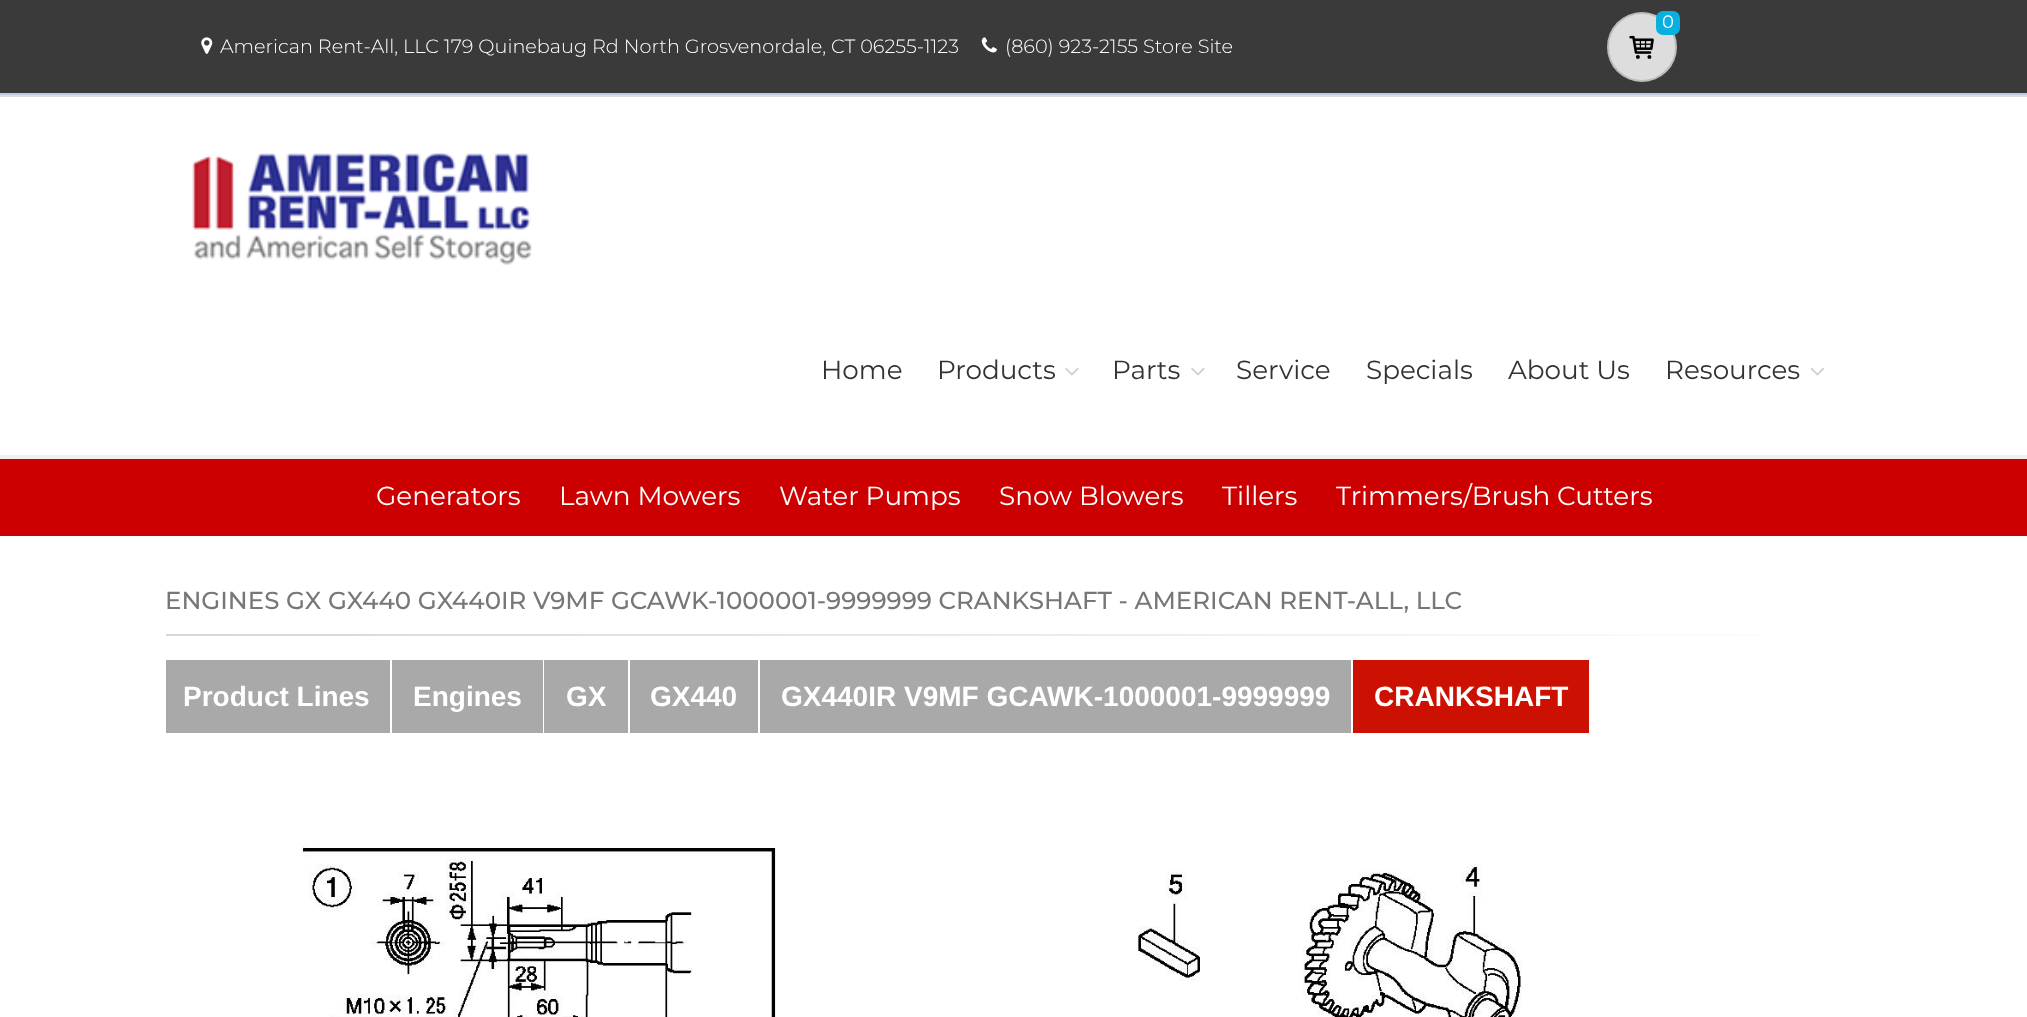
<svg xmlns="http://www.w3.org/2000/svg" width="2027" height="1017">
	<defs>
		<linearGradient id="g1" gradientUnits="userSpaceOnUse" x1="166" y1="634" x2="1864" y2="634"><stop offset="0" stop-color="#D6D6D6" /><stop offset="1" stop-color="#FFFFFF" /></linearGradient>
	</defs>
	<rect width="100%" height="100%" fill="#FFFFFF" />
	<rect x="0" y="0" width="2027" height="93" fill="#3A3A3A" />
	<rect x="0" y="93" width="2027" height="2" fill="#BBC9E3" />
	<circle cx="1642" cy="47" r="35" fill="#DDDDDD" />
	<circle cx="1642" cy="47" r="34" fill="none" stroke="#000000" stroke-opacity="0.15" stroke-width="2" />
	<rect x="1656" y="11" width="24" height="24" rx="7" fill="#09AFDF" />
	<text x="1662" y="28" font-family="Montserrat" font-size="18" fill="#FFFFFF">0</text>
	<image x="1629" y="35" width="25" height="24" href="assets/img1.png" />
	<image x="201" y="37" width="12" height="17" href="assets/img2.png" />
	<text x="220" y="53" font-family="Montserrat" font-size="19.25" font-weight="300" fill="#FFFFFF">American Rent-All, LLC 179 Quinebaug Rd North Grosvenordale, CT 06255-1123</text>
	<image x="981" y="37" width="16" height="16" href="assets/img3.png" />
	<text x="1005" y="53" font-family="Montserrat" font-size="19.25" font-weight="300" fill="#FFFFFF">(860) 923-2155 Store Site</text>
	<rect x="0" y="95" width="2027" height="2" fill="#DDDDDD" />
	<rect x="0" y="455" width="2027" height="4" fill="#F1F1F1" />
	<image x="192" y="152" width="340" height="113" href="assets/img4.png" />
	<g font-family="Montserrat" font-size="26.25" fill="#333333">
		<text x="821" y="379">Home</text>
		<text x="937" y="379">Products</text>
	</g>
	<image x="1065" y="367" width="14" height="9" href="assets/img5.png" />
	<text x="1112" y="379" font-family="Montserrat" font-size="26.25" fill="#333333">Parts</text>
	<image x="1191" y="367" width="14" height="9" href="assets/img5.png" />
	<g font-family="Montserrat" font-size="26.25" fill="#333333">
		<text x="1236" y="379">Service</text>
		<text x="1366" y="379">Specials</text>
		<text x="1508" y="379">About Us</text>
		<text x="1665" y="379">Resources</text>
	</g>
	<image x="1810" y="367" width="14" height="9" href="assets/img6.png" />
	<rect x="0" y="459" width="2027" height="77" fill="#CC0000" />
	<g font-family="Montserrat" font-size="26.25" fill="#FFFFFF">
		<text x="376" y="505">Generators</text>
		<text x="559" y="505">Lawn Mowers</text>
		<text x="779" y="505">Water Pumps</text>
		<text x="999" y="505">Snow Blowers</text>
		<text x="1222" y="505">Tillers</text>
		<text x="1336" y="505">Trimmers/Brush Cutters</text>
	</g>
	<text x="165" y="609" font-family="Montserrat" font-size="24.5" font-weight="500" fill="#777777">ENGINES GX GX440 GX440IR V9MF GCAWK-1000001-9999999 CRANKSHAFT - AMERICAN RENT-ALL, LLC</text>
	<rect x="166" y="634" width="1594" height="2" fill="url(#g1)" />
	<rect x="166" y="660" width="224" height="73" fill="#A9A9A9" />
	<text x="183" y="706" font-family="Liberation Sans" font-size="28" font-weight="700" fill="#FFFFFF">Product Lines</text>
	<rect x="392" y="660" width="151" height="73" fill="#A9A9A9" />
	<text x="413" y="706" font-family="Liberation Sans" font-size="28" font-weight="700" fill="#FFFFFF">Engines</text>
	<rect x="544" y="660" width="84" height="73" fill="#A9A9A9" />
	<text x="566" y="706" font-family="Liberation Sans" font-size="28" font-weight="700" fill="#FFFFFF">GX</text>
	<rect x="630" y="660" width="128" height="73" fill="#A9A9A9" />
	<text x="650" y="706" font-family="Liberation Sans" font-size="28" font-weight="700" fill="#FFFFFF">GX440</text>
	<rect x="760" y="660" width="591" height="73" fill="#A9A9A9" />
	<text x="781" y="706" font-family="Liberation Sans" font-size="28" font-weight="700" fill="#FFFFFF">GX440IR V9MF GCAWK-1000001-9999999</text>
	<rect x="1353" y="660" width="236" height="73" fill="#CC1001" />
	<text x="1374" y="706" font-family="Liberation Sans" font-size="28" font-weight="700" fill="#FFFFFF">CRANKSHAFT</text>
	<image x="302" y="844" width="1220" height="173" href="assets/img7.png" />
</svg>
